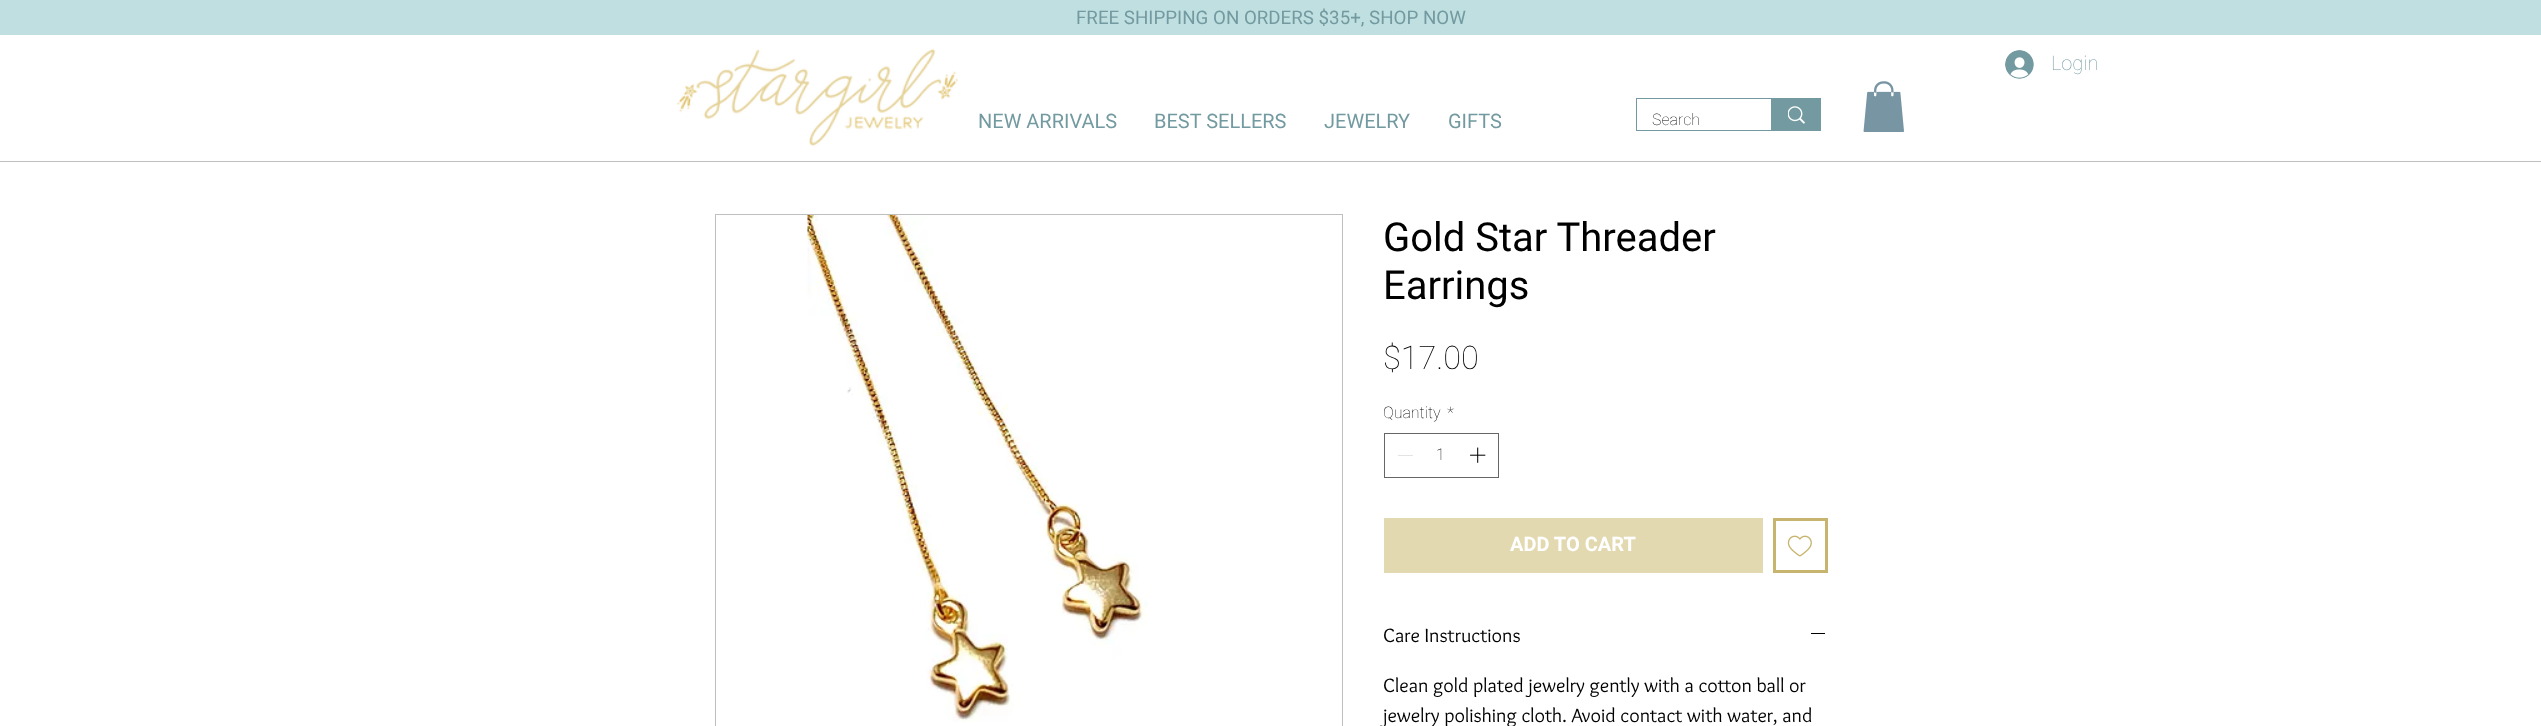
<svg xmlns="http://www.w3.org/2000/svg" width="2541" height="726">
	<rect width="100%" height="100%" fill="#FFFFFF" />
	<rect x="0" y="0" width="2541" height="35" fill="#BFDFE0" />
	<text x="1076" y="24" font-family="Roboto" font-size="18.75" fill="#739AA0">FREE SHIPPING ON ORDERS $35+, SHOP NOW</text>
	<image x="676" y="48" width="282" height="99" href="assets/img1.png" />
	<image x="2005" y="50" width="29" height="29" href="assets/img2.png" />
	<text x="2051" y="70" font-family="Roboto" font-size="20" font-weight="100" fill="#739AA0">Login</text>
	<g font-family="Roboto" font-size="20" fill="#739AA0">
		<text x="978" y="128">NEW ARRIVALS</text>
		<text x="1154" y="128">BEST SELLERS</text>
		<text x="1324" y="128">JEWELRY</text>
		<text x="1448" y="128">GIFTS</text>
	</g>
	<rect x="1636.5" y="98.5" width="184" height="32" fill="none" stroke="#739AA0" />
	<text x="1652" y="125" font-family="Roboto" font-size="16" font-weight="100" fill="#000000">Search</text>
	<rect x="1771" y="99" width="49" height="31" fill="#739AA0" />
	<image x="1788" y="106" width="17" height="18" href="assets/img3.png" />
	<image x="1863" y="81" width="41" height="51" href="assets/img4.png" />
	<rect x="0" y="161" width="2541" height="1" fill="#BFBFBF" />
	<rect x="715.5" y="214.5" width="627" height="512" fill="none" stroke="#BFBFBF" />
	<image x="807" y="215" width="341" height="507" href="assets/img5.png" />
	<g font-family="Roboto" font-size="40" fill="#000000">
		<text x="1383" y="251">Gold Star Threader</text>
		<text x="1383" y="299">Earrings</text>
	</g>
	<text x="1383" y="369" font-family="Roboto" font-size="32.5" font-weight="100" fill="#000000">$17.00</text>
	<g font-family="Roboto" font-size="16" font-weight="100" fill="#000000">
		<text x="1383" y="418">Quantity</text>
		<text x="1447" y="418">*</text>
	</g>
	<rect x="1384.5" y="433.5" width="114" height="44" fill="none" stroke="#666666" />
	<rect x="1398" y="455" width="15" height="1" fill="#E3E3E3" />
	<text x="1436" y="460" font-family="Roboto" font-size="16" font-weight="100" fill="#000000">1</text>
	<image x="1470" y="447" width="16" height="16" href="assets/img6.png" />
	<rect x="1384" y="518" width="379" height="55" fill="#E3D9B1" />
	<text x="1510" y="551" font-family="Roboto" font-size="20" font-weight="700" fill="#FFFFFF">ADD TO CART</text>
	<rect x="1774.5" y="519.5" width="52" height="52" fill="none" stroke="#C7B56F" stroke-width="3" />
	<image x="1787" y="535" width="25" height="22" href="assets/img7.png" />
	<text x="1383" y="642" font-family="Overlock" font-size="20" fill="#000000">Care Instructions</text>
	<rect x="1811" y="633" width="14" height="1" fill="#000000" />
	<g font-family="Overlock" font-size="20" fill="#000000">
		<text x="1383" y="692">Clean gold plated jewelry gently with a cotton ball or</text>
		<text x="1383" y="722">jewelry polishing cloth. Avoid contact with water, and</text>
	</g>
</svg>
